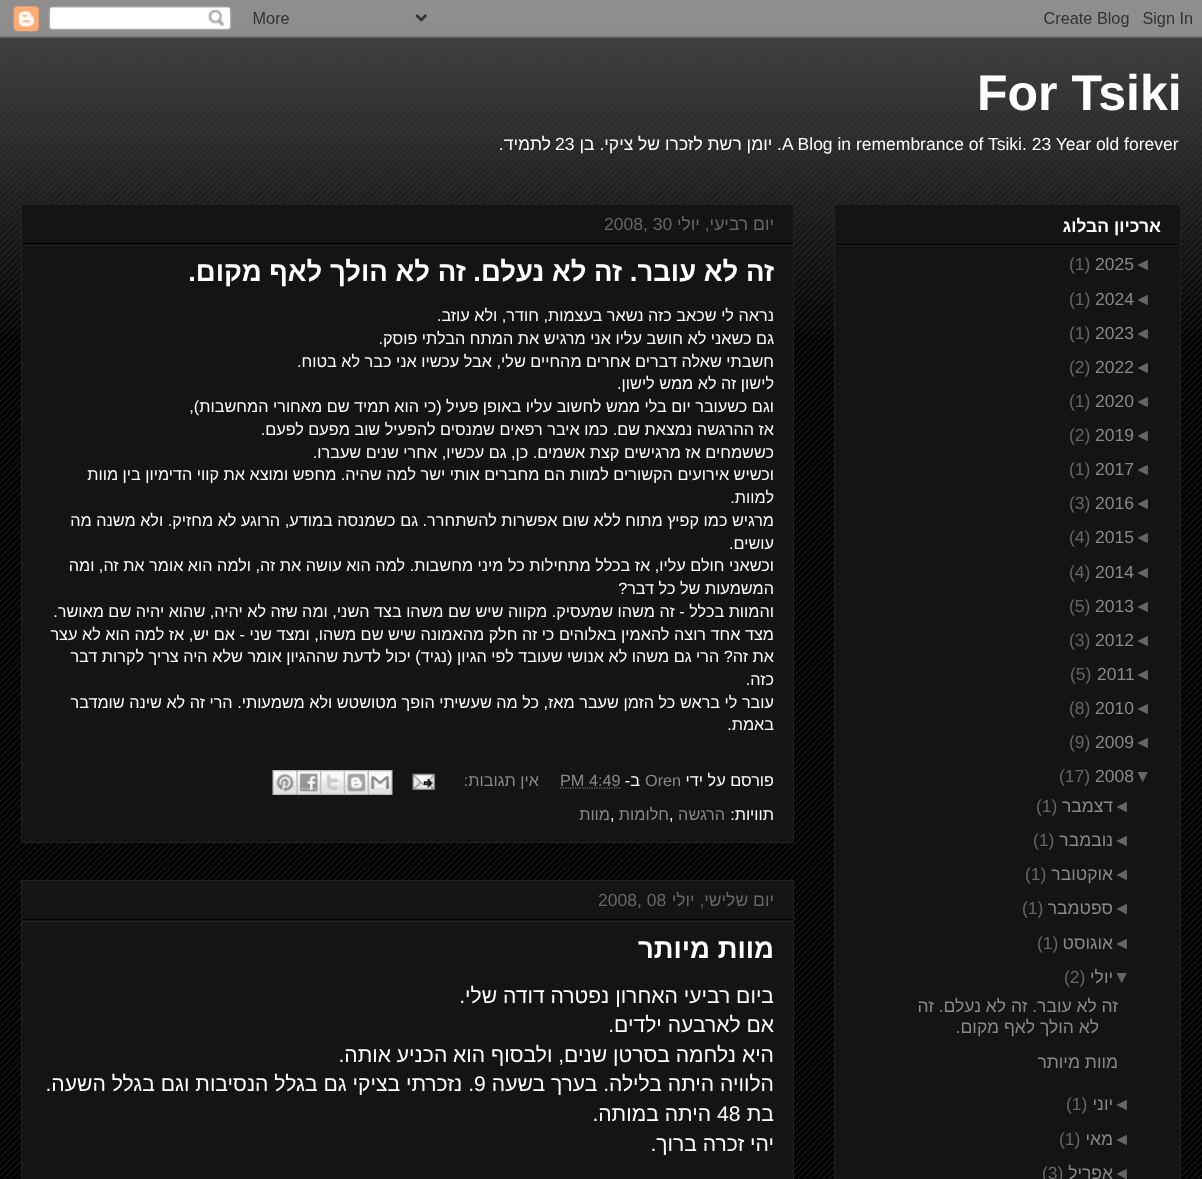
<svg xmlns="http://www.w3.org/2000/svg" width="1202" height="1179">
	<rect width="100%" height="100%" fill="#000000" />
	<image x="0" y="16" width="1202" height="1163" href="assets/img1.png" />
	<image x="0" y="0" width="1202" height="335" href="assets/img2.png" />
	<image x="0" y="0" width="1202" height="38" href="assets/img3.png" />
	<text x="977" y="110" font-family="Liberation Sans" font-size="50" font-weight="700" fill="#FFFFFF">For Tsiki</text>
	<text x="782" y="150" font-family="Liberation Sans" font-size="17.5" fill="#FFFFFF">A Blog in remembrance of Tsiki. 23 Year old forever</text>
	<text x="782" y="150" font-family="Liberation Sans" font-size="17.5" direction="rtl" fill="#FFFFFF">. יומן רשת לזכרו של ציקי. בן</text>
	<text x="555" y="150" font-family="Liberation Sans" font-size="17.5" fill="#FFFFFF">23</text>
	<text x="551" y="150" font-family="Liberation Sans" font-size="17.5" direction="rtl" fill="#FFFFFF">לתמיד.</text>
	<rect x="834.5" y="204.5" width="346" height="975" fill="#141414" stroke="#222222" />
	<rect x="835" y="244" width="345" height="1" fill="#000000" />
	<text x="1161" y="232" font-family="Liberation Sans" font-size="17.5" font-weight="700" direction="rtl" fill="#FFFFFF">ארכיון הבלוג</text>
	<rect x="835" y="245" width="345" height="1" fill="#222222" />
	<text x="1134" y="270" font-family="Liberation Sans" font-size="17.5" fill="#666666">◄</text>
	<text x="1095" y="270" font-family="Liberation Sans" font-size="17.5" fill="#888888">2025</text>
	<g font-family="Liberation Sans" font-size="17.5" fill="#666666">
		<text x="1069" y="270">(1)</text>
		<text x="1134" y="305">◄</text>
	</g>
	<text x="1095" y="305" font-family="Liberation Sans" font-size="17.5" fill="#888888">2024</text>
	<g font-family="Liberation Sans" font-size="17.5" fill="#666666">
		<text x="1069" y="305">(1)</text>
		<text x="1134" y="339">◄</text>
	</g>
	<text x="1095" y="339" font-family="Liberation Sans" font-size="17.5" fill="#888888">2023</text>
	<g font-family="Liberation Sans" font-size="17.5" fill="#666666">
		<text x="1069" y="339">(1)</text>
		<text x="1134" y="373">◄</text>
	</g>
	<text x="1095" y="373" font-family="Liberation Sans" font-size="17.5" fill="#888888">2022</text>
	<g font-family="Liberation Sans" font-size="17.5" fill="#666666">
		<text x="1069" y="373">(2)</text>
		<text x="1134" y="407">◄</text>
	</g>
	<text x="1095" y="407" font-family="Liberation Sans" font-size="17.5" fill="#888888">2020</text>
	<g font-family="Liberation Sans" font-size="17.5" fill="#666666">
		<text x="1069" y="407">(1)</text>
		<text x="1134" y="441">◄</text>
	</g>
	<text x="1095" y="441" font-family="Liberation Sans" font-size="17.5" fill="#888888">2019</text>
	<g font-family="Liberation Sans" font-size="17.5" fill="#666666">
		<text x="1069" y="441">(2)</text>
		<text x="1134" y="475">◄</text>
	</g>
	<text x="1095" y="475" font-family="Liberation Sans" font-size="17.5" fill="#888888">2017</text>
	<g font-family="Liberation Sans" font-size="17.5" fill="#666666">
		<text x="1069" y="475">(1)</text>
		<text x="1134" y="509">◄</text>
	</g>
	<text x="1095" y="509" font-family="Liberation Sans" font-size="17.5" fill="#888888">2016</text>
	<g font-family="Liberation Sans" font-size="17.5" fill="#666666">
		<text x="1069" y="509">(3)</text>
		<text x="1134" y="543">◄</text>
	</g>
	<text x="1095" y="543" font-family="Liberation Sans" font-size="17.5" fill="#888888">2015</text>
	<g font-family="Liberation Sans" font-size="17.5" fill="#666666">
		<text x="1069" y="543">(4)</text>
		<text x="1134" y="578">◄</text>
	</g>
	<text x="1095" y="578" font-family="Liberation Sans" font-size="17.5" fill="#888888">2014</text>
	<g font-family="Liberation Sans" font-size="17.5" fill="#666666">
		<text x="1069" y="578">(4)</text>
		<text x="1134" y="612">◄</text>
	</g>
	<text x="1095" y="612" font-family="Liberation Sans" font-size="17.5" fill="#888888">2013</text>
	<g font-family="Liberation Sans" font-size="17.5" fill="#666666">
		<text x="1069" y="612">(5)</text>
		<text x="1134" y="646">◄</text>
	</g>
	<text x="1095" y="646" font-family="Liberation Sans" font-size="17.5" fill="#888888">2012</text>
	<g font-family="Liberation Sans" font-size="17.5" fill="#666666">
		<text x="1069" y="646">(3)</text>
		<text x="1134" y="680">◄</text>
	</g>
	<text x="1097" y="680" font-family="Liberation Sans" font-size="17.5" fill="#888888">2011</text>
	<g font-family="Liberation Sans" font-size="17.5" fill="#666666">
		<text x="1070" y="680">(5)</text>
		<text x="1134" y="714">◄</text>
	</g>
	<text x="1095" y="714" font-family="Liberation Sans" font-size="17.5" fill="#888888">2010</text>
	<g font-family="Liberation Sans" font-size="17.5" fill="#666666">
		<text x="1069" y="714">(8)</text>
		<text x="1134" y="748">◄</text>
	</g>
	<text x="1095" y="748" font-family="Liberation Sans" font-size="17.5" fill="#888888">2009</text>
	<g font-family="Liberation Sans" font-size="17.5" fill="#666666">
		<text x="1069" y="748">(9)</text>
		<text x="1134" y="782">▼</text>
	</g>
	<text x="1095" y="782" font-family="Liberation Sans" font-size="17.5" fill="#888888">2008</text>
	<g font-family="Liberation Sans" font-size="17.5" fill="#666666">
		<text x="1059" y="782">(17)</text>
		<text x="1113" y="812">◄</text>
	</g>
	<text x="1113" y="812" font-family="Liberation Sans" font-size="17.5" direction="rtl" fill="#888888">דצמבר</text>
	<g font-family="Liberation Sans" font-size="17.5" fill="#666666">
		<text x="1036" y="812">(1)</text>
		<text x="1113" y="846">◄</text>
	</g>
	<text x="1113" y="846" font-family="Liberation Sans" font-size="17.5" direction="rtl" fill="#888888">נובמבר</text>
	<g font-family="Liberation Sans" font-size="17.5" fill="#666666">
		<text x="1033" y="846">(1)</text>
		<text x="1113" y="880">◄</text>
	</g>
	<text x="1113" y="880" font-family="Liberation Sans" font-size="17.5" direction="rtl" fill="#888888">אוקטובר</text>
	<g font-family="Liberation Sans" font-size="17.5" fill="#666666">
		<text x="1025" y="880">(1)</text>
		<text x="1113" y="914">◄</text>
	</g>
	<text x="1113" y="914" font-family="Liberation Sans" font-size="17.5" direction="rtl" fill="#888888">ספטמבר</text>
	<g font-family="Liberation Sans" font-size="17.5" fill="#666666">
		<text x="1022" y="914">(1)</text>
		<text x="1113" y="949">◄</text>
	</g>
	<text x="1113" y="949" font-family="Liberation Sans" font-size="17.5" direction="rtl" fill="#888888">אוגוסט</text>
	<g font-family="Liberation Sans" font-size="17.5" fill="#666666">
		<text x="1037" y="949">(1)</text>
		<text x="1113" y="983">▼</text>
	</g>
	<text x="1113" y="983" font-family="Liberation Sans" font-size="17.5" direction="rtl" fill="#888888">יולי</text>
	<text x="1064" y="983" font-family="Liberation Sans" font-size="17.5" fill="#666666">(2)</text>
	<g font-family="Liberation Sans" font-size="17.5" direction="rtl" fill="#888888">
		<text x="1118" y="1012">זה לא עובר. זה לא נעלם. זה</text>
		<text x="1099" y="1033">לא הולך לאף מקום.</text>
		<text x="1118" y="1068">מוות מיותר</text>
	</g>
	<text x="1113" y="1110" font-family="Liberation Sans" font-size="17.5" fill="#666666">◄</text>
	<text x="1113" y="1110" font-family="Liberation Sans" font-size="17.5" direction="rtl" fill="#888888">יוני</text>
	<g font-family="Liberation Sans" font-size="17.5" fill="#666666">
		<text x="1066" y="1110">(1)</text>
		<text x="1113" y="1145">◄</text>
	</g>
	<text x="1113" y="1145" font-family="Liberation Sans" font-size="17.5" direction="rtl" fill="#888888">מאי</text>
	<g font-family="Liberation Sans" font-size="17.5" fill="#666666">
		<text x="1059" y="1145">(1)</text>
		<text x="1113" y="1179">◄</text>
	</g>
	<text x="1113" y="1179" font-family="Liberation Sans" font-size="17.5" direction="rtl" fill="#888888">אפריל</text>
	<text x="1042" y="1179" font-family="Liberation Sans" font-size="17.5" fill="#666666">(3)</text>
	<rect x="21.5" y="204.5" width="772" height="638" fill="#141414" stroke="#222222" />
	<rect x="23" y="243" width="770" height="1" fill="#000000" />
	<text x="774" y="230" font-family="Liberation Sans" font-size="17.5" direction="rtl" fill="#666666">יום רביעי, יולי</text>
	<text x="604" y="230" font-family="Liberation Sans" font-size="17.5" fill="#666666">2008, 30</text>
	<rect x="23" y="245" width="770" height="1" fill="#222222" />
	<text x="774" y="281" font-family="Liberation Sans" font-size="27.5" font-weight="700" direction="rtl" fill="#FFFFFF">זה לא עובר. זה לא נעלם. זה לא הולך לאף מקום.</text>
	<g font-family="Liberation Sans" font-size="16.25" direction="rtl" fill="#FFFFFF">
		<text x="774" y="321">נראה לי שכאב כזה נשאר בעצמות, חודר, ולא עוזב.</text>
		<text x="774" y="344">גם כשאני לא חושב עליו אני מרגיש את המתח הבלתי פוסק.</text>
		<text x="774" y="367">חשבתי שאלה דברים אחרים מהחיים שלי, אבל עכשיו אני כבר לא בטוח.</text>
		<text x="774" y="389">לישון זה לא ממש לישון.</text>
		<text x="774" y="412">וגם כשעובר יום בלי ממש לחשוב עליו באופן פעיל (כי הוא תמיד שם מאחורי המחשבות),</text>
		<text x="774" y="435">אז ההרגשה נמצאת שם. כמו איבר רפאים שמנסים להפעיל שוב מפעם לפעם.</text>
		<text x="774" y="458">כששמחים אז מרגישים קצת אשמים. כן, גם עכשיו, אחרי שנים שעברו.</text>
		<text x="774" y="480">וכשיש אירועים הקשורים למוות הם מחברים אותי ישר למה שהיה. מחפש ומוצא את קווי הדימיון בין מוות</text>
		<text x="774" y="503">למוות.</text>
		<text x="774" y="526">מרגיש כמו קפיץ מתוח ללא שום אפשרות להשתחרר. גם כשמנסה במודע, הרוגע לא מחזיק. ולא משנה מה</text>
		<text x="774" y="549">עושים.</text>
		<text x="774" y="571">וכשאני חולם עליו, אז בכלל מתחילות כל מיני מחשבות. למה הוא עושה את זה, ולמה הוא אומר את זה, ומה</text>
		<text x="774" y="594">המשמעות של כל דבר?</text>
		<text x="774" y="617">והמוות בכלל - זה משהו שמעסיק. מקווה שיש שם משהו בצד השני, ומה שזה לא יהיה, שהוא יהיה שם מאושר.</text>
		<text x="774" y="640">מצד אחד רוצה להאמין באלוהים כי זה חלק מהאמונה שיש שם משהו, ומצד שני - אם יש, אז למה הוא לא עצר</text>
		<text x="774" y="662">את זה? הרי גם משהו לא אנושי שעובד לפי הגיון (נגיד) יכול לדעת שההגיון אומר שלא היה צריך לקרות דבר</text>
		<text x="774" y="685">כזה.</text>
		<text x="774" y="708">עובר לי בראש כל הזמן שעבר מאז, כל מה שעשיתי הופך מטושטש ולא משמעותי. הרי זה לא שינה שומדבר</text>
		<text x="774" y="730">באמת.</text>
		<text x="774" y="786">פורסם על ידי</text>
	</g>
	<text x="645" y="786" font-family="Liberation Sans" font-size="16.25" fill="#888888">Oren</text>
	<text x="640" y="786" font-family="Liberation Sans" font-size="16.25" direction="rtl" fill="#FFFFFF">ב-</text>
	<text x="560" y="786" font-family="Liberation Sans" font-size="16.25" fill="#888888">PM 4:49</text>
	<path d="M560 788H584.5" fill="none" stroke="#888888" stroke-width="1.2" stroke-dasharray="1.25 1.25" />
	<path d="M584.5 788H585.5M587 788H588" fill="none" stroke="#888888" stroke-width="1.2" />
	<path d="M589 788H620.5" fill="none" stroke="#888888" stroke-width="1.2" stroke-dasharray="1.25 1.25" />
	<text x="539" y="786" font-family="Liberation Sans" font-size="16.25" direction="rtl" fill="#888888">אין תגובות:</text>
	<image x="412" y="773" width="23" height="17" href="assets/img4.png" />
	<image x="368" y="770" width="25" height="25" href="assets/img5.png" />
	<image x="344" y="770" width="25" height="25" href="assets/img6.png" />
	<image x="321" y="770" width="23" height="25" href="assets/img7.png" />
	<image x="296" y="770" width="26" height="25" href="assets/img8.png" />
	<image x="272" y="770" width="26" height="25" href="assets/img9.png" />
	<text x="774" y="820" font-family="Liberation Sans" font-size="16.25" direction="rtl" fill="#FFFFFF">תוויות:</text>
	<g font-family="Liberation Sans" font-size="16.25" direction="rtl" fill="#888888">
		<text x="725" y="820">הרגשה</text>
		<text x="669" y="820">חלומות</text>
		<text x="610" y="820">מוות</text>
	</g>
	<g font-family="Liberation Sans" font-size="16.25" fill="#FFFFFF">
		<text x="669" y="820">,</text>
		<text x="610" y="820">,</text>
	</g>
	<rect x="21.5" y="880.5" width="772" height="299" fill="#141414" stroke="#222222" />
	<rect x="23" y="919" width="770" height="1" fill="#000000" />
	<text x="774" y="906" font-family="Liberation Sans" font-size="17.5" direction="rtl" fill="#666666">יום שלישי, יולי</text>
	<text x="598" y="906" font-family="Liberation Sans" font-size="17.5" fill="#666666">2008, 08</text>
	<rect x="23" y="921" width="770" height="1" fill="#222222" />
	<text x="774" y="958" font-family="Liberation Sans" font-size="27.5" font-weight="700" direction="rtl" fill="#FFFFFF">מוות מיותר</text>
	<g font-family="Liberation Sans" font-size="21.1" direction="rtl" fill="#FFFFFF">
		<text x="774" y="1003">ביום רביעי האחרון נפטרה דודה שלי.</text>
		<text x="774" y="1032">אם לארבעה ילדים.</text>
		<text x="774" y="1062">היא נלחמה בסרטן שנים, ולבסוף הוא הכניע אותה.</text>
		<text x="774" y="1091">הלוויה היתה בלילה. בערך בשעה</text>
	</g>
	<text x="474" y="1091" font-family="Liberation Sans" font-size="21.1" fill="#FFFFFF">9</text>
	<g font-family="Liberation Sans" font-size="21.1" direction="rtl" fill="#FFFFFF">
		<text x="474" y="1091">. נזכרתי בציקי גם בגלל הנסיבות וגם בגלל השעה.</text>
		<text x="774" y="1121">בת</text>
	</g>
	<text x="717" y="1121" font-family="Liberation Sans" font-size="21.1" fill="#FFFFFF">48</text>
	<g font-family="Liberation Sans" font-size="21.1" direction="rtl" fill="#FFFFFF">
		<text x="711" y="1121">היתה במותה.</text>
		<text x="774" y="1151">יהי זכרה ברוך.</text>
	</g>
</svg>
